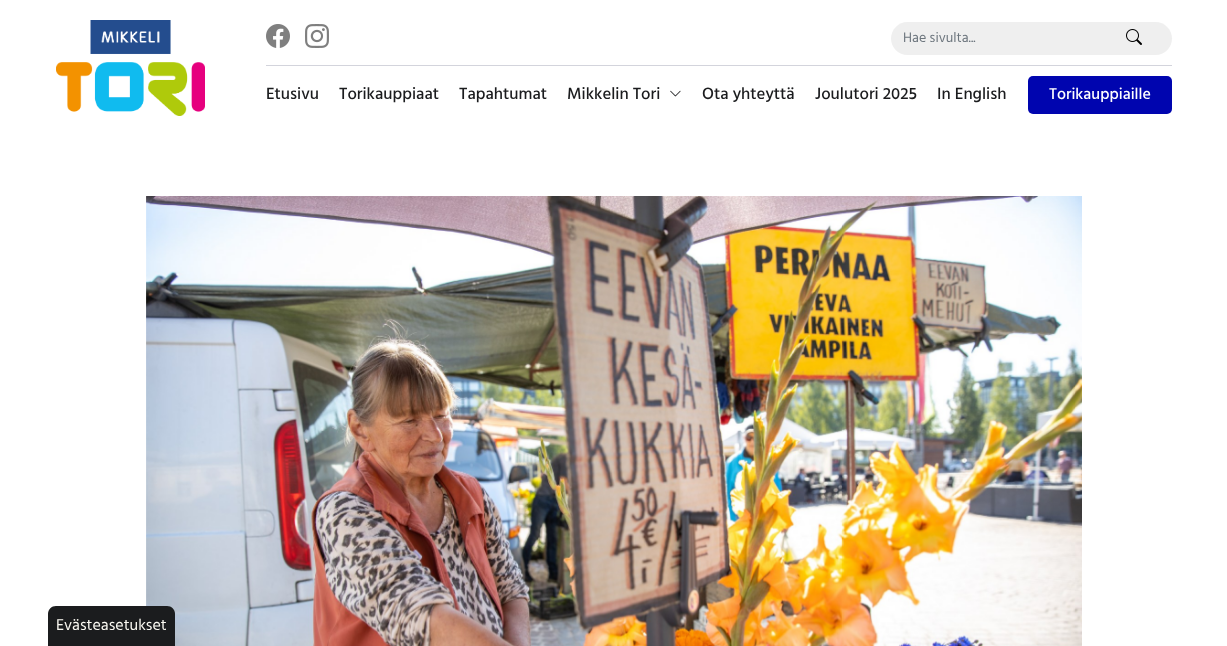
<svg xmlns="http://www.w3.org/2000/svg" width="1227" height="646">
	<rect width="100%" height="100%" fill="#FFFFFF" />
	<image x="56" y="20" width="149" height="96" href="assets/img1.png" />
	<rect x="266" y="65" width="906" height="1" fill="#D3D4DC" />
	<image x="266" y="24" width="24" height="24" href="assets/img2.png" />
	<image x="305" y="24" width="24" height="24" href="assets/img3.png" />
	<path d="M907.5 22H1091V55H907.5C898.5 55 891 47.5 891 38.5C891 29.5 898.5 22 907.5 22Z" fill="#EFEFEF" />
	<text x="903" y="42" font-family="Hind" font-size="14" fill="#6C757D">Hae sivulta...</text>
	<path d="M1090 22H1155.5C1164.5 22 1172 29.5 1172 38.5C1172 47.5 1164.5 55 1155.5 55H1090Z" fill="#EFEFEF" />
	<image x="1126" y="29" width="16" height="16" href="assets/img4.png" />
	<g font-family="Hind" font-size="16.75" font-weight="500" fill="#1B1C1E">
		<text x="266" y="99">Etusivu</text>
		<text x="339" y="99">Torikauppiaat</text>
		<text x="459" y="99">Tapahtumat</text>
		<text x="567" y="99">Mikkelin Tori</text>
	</g>
	<image x="670" y="90" width="11" height="7" href="assets/img5.png" />
	<g font-family="Hind" font-size="16.75" font-weight="500" fill="#1B1C1E">
		<text x="702" y="99">Ota yhteyttä</text>
		<text x="815" y="99">Joulutori 2025</text>
		<text x="937" y="99">In English</text>
	</g>
	<rect x="1028" y="76" width="144" height="38" rx="5" fill="#0005AF" />
	<text x="1049" y="99" font-family="Hind" font-size="16" font-weight="500" fill="#FFFFFF">Torikauppiaille</text>
	<image x="146" y="196" width="936" height="450" href="assets/img6.png" />
	<path d="M56 606H167C171.5 606 175 609.5 175 614V646H48V614C48 609.5 51.5 606 56 606Z" fill="#1B1C1E" />
	<text x="56" y="630" font-family="Hind" font-size="16" fill="#FBF9F2">Evästeasetukset</text>
</svg>
